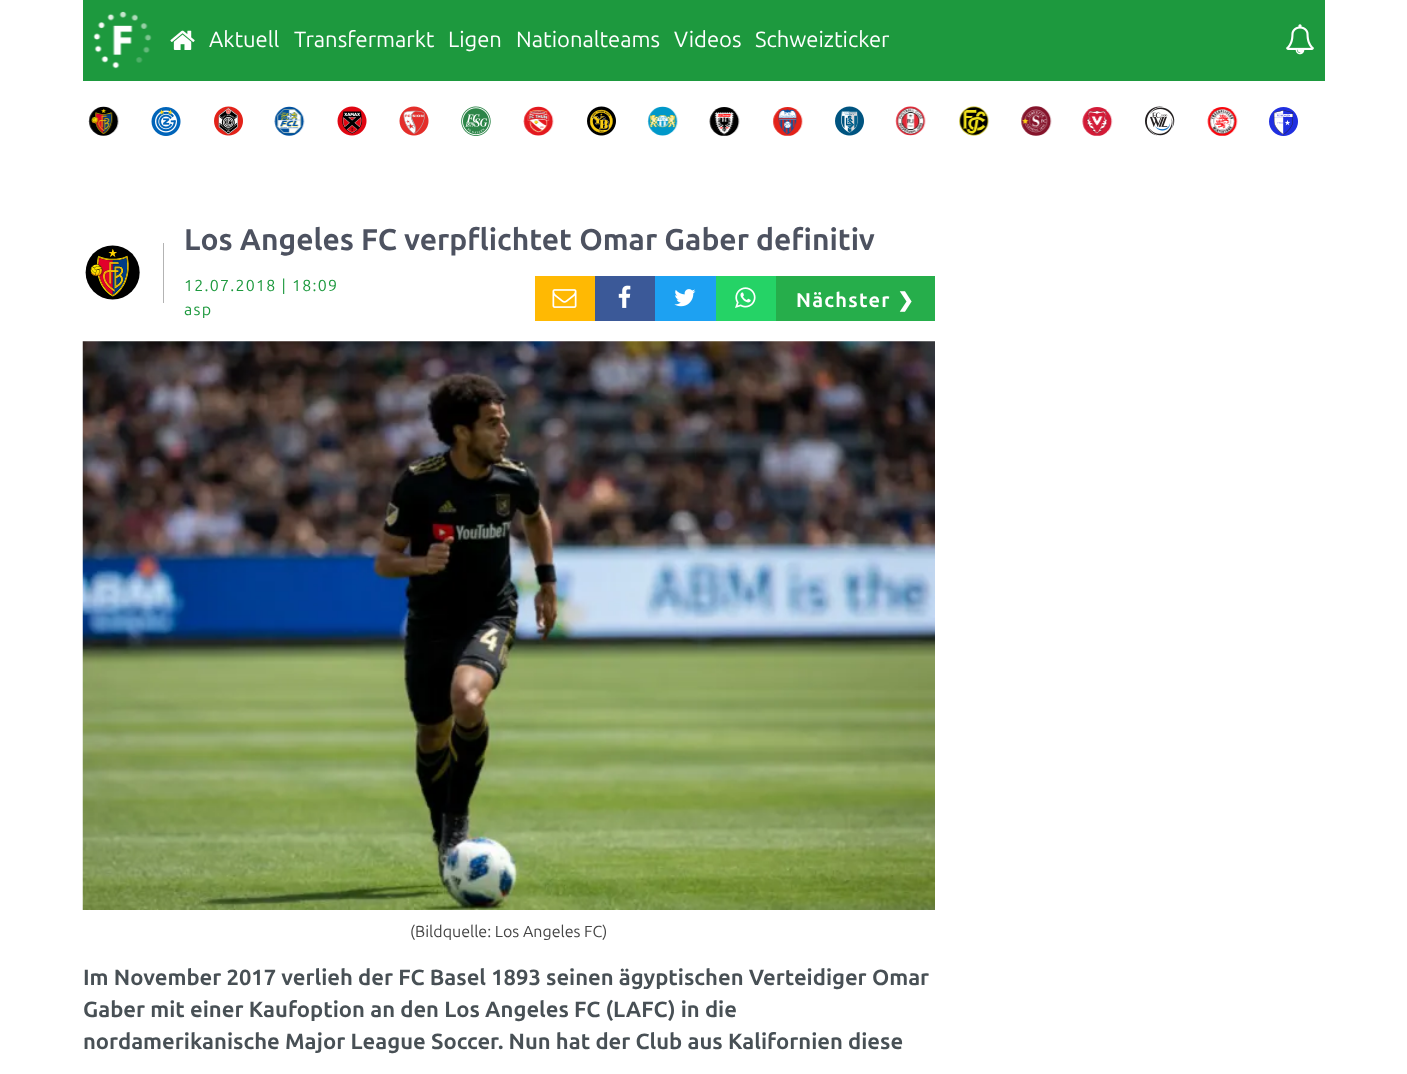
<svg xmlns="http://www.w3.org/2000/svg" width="1407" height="1074">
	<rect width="100%" height="100%" fill="#FFFFFF" />
	<rect x="83" y="0" width="1242" height="81" fill="#1D993E" />
	<image x="93" y="11" width="59" height="58" href="assets/img1.png" />
	<image x="170" y="30" width="25" height="20" href="assets/img2.png" />
	<g font-family="Ubuntu" font-size="22" fill="#FFFFFF">
		<text x="209" y="47">Aktuell</text>
		<text x="294" y="47">Transfermarkt</text>
		<text x="448" y="47">Ligen</text>
		<text x="516" y="47">Nationalteams</text>
		<text x="674" y="47">Videos</text>
		<text x="755" y="47">Schweizticker</text>
	</g>
	<image x="1286" y="24" width="28" height="31" href="assets/img3.png" />
	<image x="88" y="106" width="31" height="30" href="assets/img4.png" />
	<image x="151" y="107" width="30" height="29" href="assets/img5.png" />
	<image x="214" y="106" width="29" height="30" href="assets/img6.png" />
	<image x="274" y="106" width="31" height="30" href="assets/img7.png" />
	<image x="337" y="106" width="30" height="30" href="assets/img8.png" />
	<image x="399" y="106" width="30" height="30" href="assets/img9.png" />
	<image x="461" y="106" width="30" height="30" href="assets/img10.png" />
	<image x="523" y="106" width="31" height="30" href="assets/img11.png" />
	<image x="587" y="106" width="29" height="30" href="assets/img12.png" />
	<image x="647" y="106" width="31" height="30" href="assets/img13.png" />
	<image x="709" y="107" width="31" height="29" href="assets/img14.png" />
	<image x="772" y="107" width="31" height="29" href="assets/img15.png" />
	<image x="835" y="106" width="29" height="30" href="assets/img16.png" />
	<image x="895" y="106" width="31" height="30" href="assets/img17.png" />
	<image x="959" y="106" width="31" height="30" href="assets/img18.png" />
	<image x="1021" y="106" width="31" height="30" href="assets/img19.png" />
	<image x="1082" y="107" width="31" height="29" href="assets/img20.png" />
	<image x="1145" y="106" width="30" height="30" href="assets/img21.png" />
	<image x="1207" y="107" width="31" height="29" href="assets/img22.png" />
	<image x="1269" y="107" width="29" height="29" href="assets/img23.png" />
	<rect x="163" y="243" width="1" height="60" fill="#B3B3B3" />
	<image x="85" y="245" width="55" height="55" href="assets/img24.png" />
	<text x="184" y="250" font-family="Ubuntu" font-size="30" font-weight="700" fill="#4D5260">Los Angeles FC verpflichtet Omar Gaber definitiv</text>
	<g font-family="Ubuntu" font-size="16" letter-spacing="1.25" fill="#1D993E">
		<text x="184" y="291">12.07.2018 | 18:09</text>
		<text x="184" y="315">asp</text>
	</g>
	<rect x="535" y="276" width="60" height="45" fill="#FFB903" />
	<image x="552" y="289" width="25" height="19" href="assets/img25.png" />
	<rect x="595" y="276" width="60" height="45" fill="#3B5998" />
	<image x="618" y="285" width="13" height="23" href="assets/img26.png" />
	<rect x="655" y="276" width="61" height="45" fill="#1DA1F2" />
	<image x="674" y="289" width="22" height="18" href="assets/img27.png" />
	<rect x="716" y="276" width="60" height="45" fill="#25D366" />
	<image x="735" y="287" width="21" height="21" href="assets/img28.png" />
	<rect x="776" y="276" width="159" height="45" fill="#26AE4B" />
	<text x="796" y="307" font-family="Ubuntu" font-size="20" font-weight="700" letter-spacing="1.25" fill="#FFFFFF">Nächster</text>
	<text x="897" y="307" font-family="DejaVu Sans" font-size="20" font-weight="700" letter-spacing="1.25" fill="#FFFFFF">❯</text>
	<image x="82" y="341" width="853" height="569" href="assets/img29.png" />
	<text x="410" y="937" font-family="Ubuntu" font-size="16" fill="#444444">(Bildquelle: Los Angeles FC)</text>
	<g font-family="Ubuntu" font-size="22" font-weight="700" fill="#485055">
		<text x="83" y="985">Im November 2017 verlieh der FC Basel 1893 seinen ägyptischen Verteidiger Omar</text>
		<text x="83" y="1017">Gaber mit einer Kaufoption an den Los Angeles FC (LAFC) in die</text>
		<text x="83" y="1049">nordamerikanische Major League Soccer. Nun hat der Club aus Kalifornien diese</text>
	</g>
</svg>
